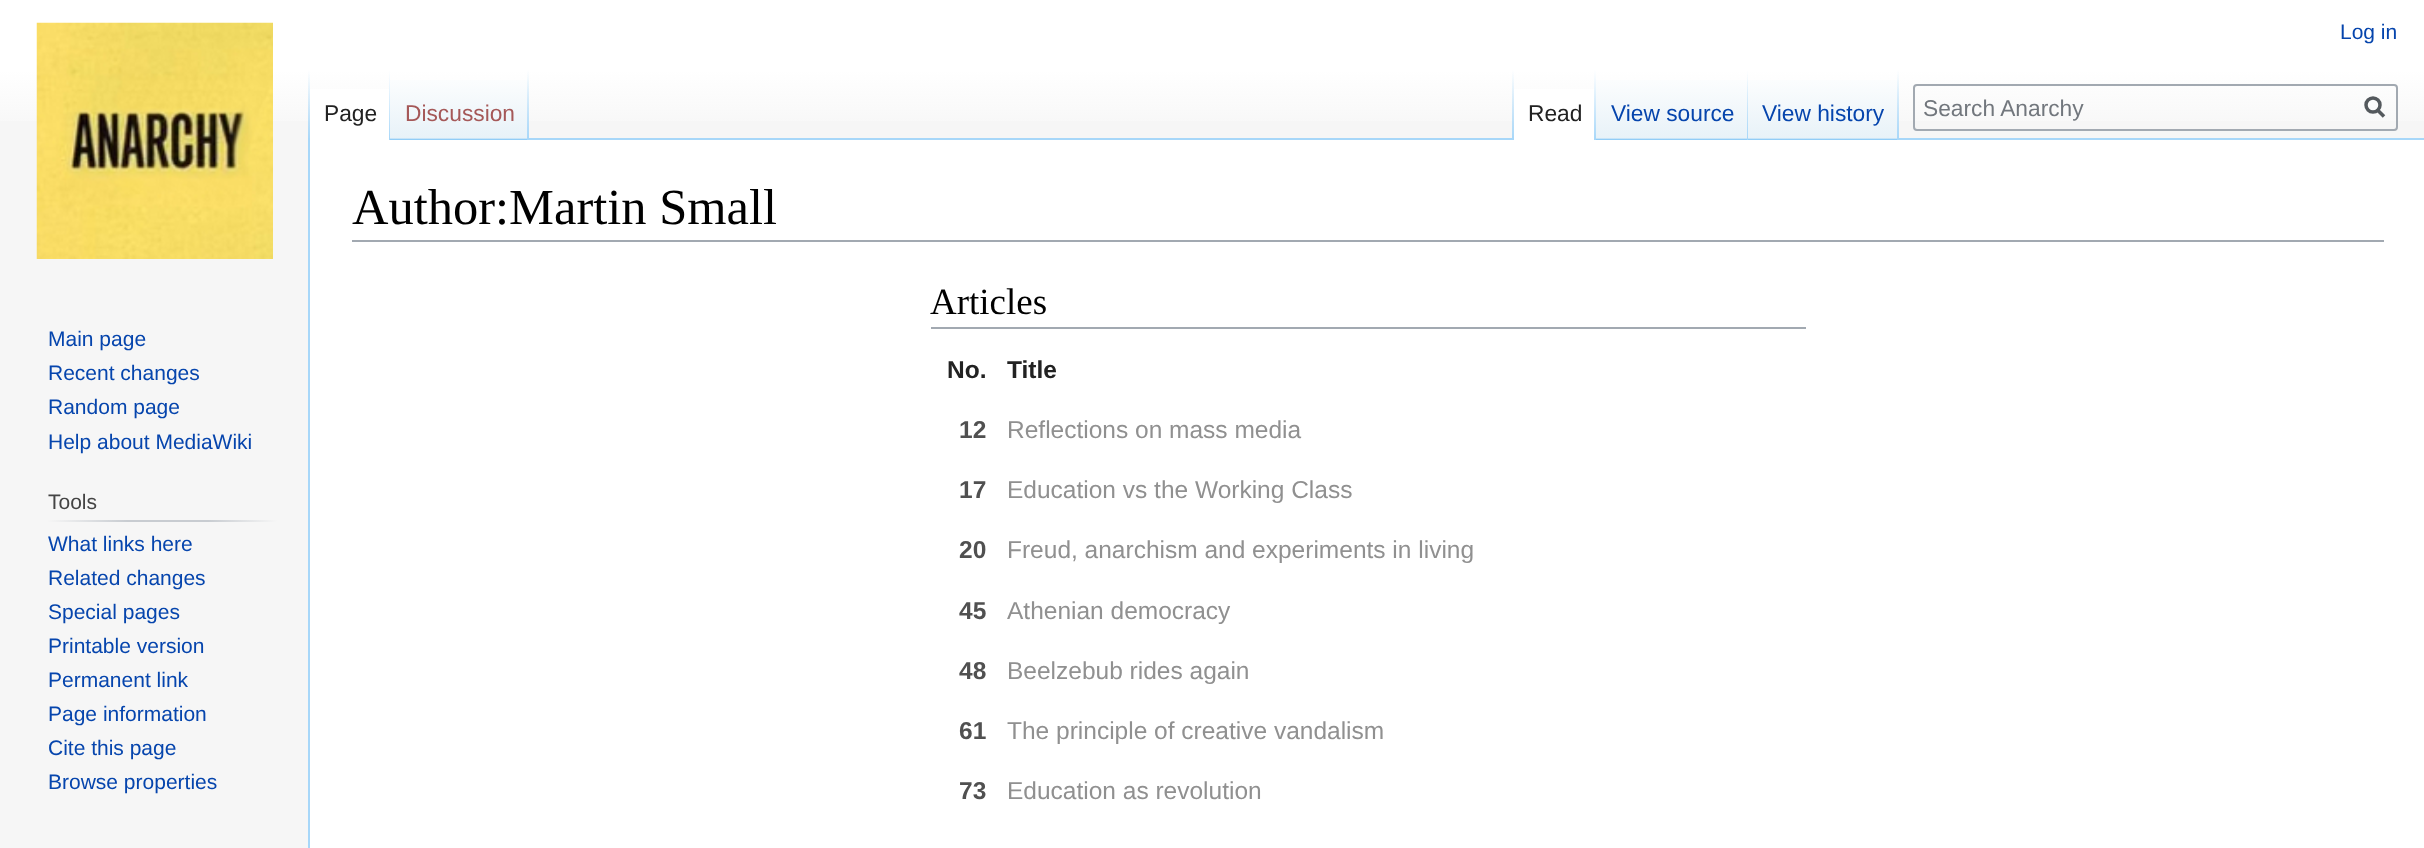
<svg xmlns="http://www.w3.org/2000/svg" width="2424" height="848">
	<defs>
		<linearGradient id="g1" gradientUnits="userSpaceOnUse" x1="1213" y1="0" x2="1213" y2="140"><stop offset="0.5" stop-color="#FFFFFF" /><stop offset="1" stop-color="#F6F6F6" /></linearGradient>
		<linearGradient id="g2" gradientUnits="userSpaceOnUse" x1="309" y1="70" x2="309" y2="140"><stop offset="0" stop-color="#A7D7F9" stop-opacity="0" /><stop offset="1" stop-color="#A7D7F9" /></linearGradient>
		<linearGradient id="g3" gradientUnits="userSpaceOnUse" x1="389" y1="70" x2="389" y2="140"><stop offset="0" stop-color="#FFFFFF" /><stop offset="1" stop-color="#A7D7F9" /></linearGradient>
		<linearGradient id="g4" gradientUnits="userSpaceOnUse" x1="459" y1="140" x2="459" y2="70"><stop offset="0" stop-color="#77C1F6" /><stop offset="0.03" stop-color="#E8F2F8" /><stop offset="1" stop-color="#FFFFFF" /></linearGradient>
		<linearGradient id="g5" gradientUnits="userSpaceOnUse" x1="528" y1="70" x2="528" y2="140"><stop offset="0" stop-color="#A7D7F9" stop-opacity="0" /><stop offset="1" stop-color="#A7D7F9" /></linearGradient>
		<linearGradient id="g6" gradientUnits="userSpaceOnUse" x1="1513" y1="70" x2="1513" y2="140"><stop offset="0" stop-color="#A7D7F9" stop-opacity="0" /><stop offset="1" stop-color="#A7D7F9" /></linearGradient>
		<linearGradient id="g7" gradientUnits="userSpaceOnUse" x1="1595" y1="70" x2="1595" y2="140"><stop offset="0" stop-color="#FFFFFF" /><stop offset="1" stop-color="#A7D7F9" /></linearGradient>
		<linearGradient id="g8" gradientUnits="userSpaceOnUse" x1="1672" y1="140" x2="1672" y2="70"><stop offset="0" stop-color="#77C1F6" /><stop offset="0.03" stop-color="#E8F2F8" /><stop offset="1" stop-color="#FFFFFF" /></linearGradient>
		<linearGradient id="g9" gradientUnits="userSpaceOnUse" x1="1747" y1="70" x2="1747" y2="140"><stop offset="0" stop-color="#A7D7F9" stop-opacity="0" /><stop offset="1" stop-color="#A7D7F9" /></linearGradient>
		<linearGradient id="g10" gradientUnits="userSpaceOnUse" x1="1824" y1="140" x2="1824" y2="70"><stop offset="0" stop-color="#77C1F6" /><stop offset="0.03" stop-color="#E8F2F8" /><stop offset="1" stop-color="#FFFFFF" /></linearGradient>
		<linearGradient id="g11" gradientUnits="userSpaceOnUse" x1="1898" y1="70" x2="1898" y2="140"><stop offset="0" stop-color="#A7D7F9" stop-opacity="0" /><stop offset="1" stop-color="#A7D7F9" /></linearGradient>
		<linearGradient id="g12" gradientUnits="userSpaceOnUse" x1="47" y1="521" x2="277" y2="521"><stop offset="0" stop-color="#F6F6F6" /><stop offset="0.35" stop-color="#C8CCD1" /><stop offset="0.7" stop-color="#C8CCD1" /><stop offset="1" stop-color="#F6F6F6" /></linearGradient>
	</defs>
	<rect width="100%" height="100%" fill="#F6F6F6" />
	<rect x="0" y="0" width="2424" height="121" fill="url(#g1)" />
	<text x="2340" y="39" font-family="Liberation Sans" font-size="21" fill="#0645AD">Log in</text>
	<rect x="308" y="138" width="2" height="710" fill="#A7D7F9" />
	<rect x="308" y="70" width="2" height="70" fill="url(#g2)" />
	<rect x="310" y="89" width="79" height="51" fill="#FFFFFF" />
	<rect x="389" y="70" width="1" height="70" fill="url(#g3)" />
	<text x="324" y="121" font-family="Liberation Sans" font-size="22.75" fill="#222222">Page</text>
	<rect x="390" y="80" width="139" height="60" fill="url(#g4)" />
	<rect x="527" y="70" width="2" height="70" fill="url(#g5)" />
	<text x="405" y="121" font-family="Liberation Sans" font-size="22.75" fill="#A55858">Discussion</text>
	<rect x="529" y="138" width="1895" height="2" fill="#A7D7F9" />
	<rect x="1512" y="70" width="2" height="70" fill="url(#g6)" />
	<rect x="1514" y="89" width="80" height="51" fill="#FFFFFF" />
	<rect x="1594" y="70" width="2" height="70" fill="url(#g7)" />
	<text x="1528" y="121" font-family="Liberation Sans" font-size="22.75" fill="#222222">Read</text>
	<rect x="1596" y="80" width="152" height="60" fill="url(#g8)" />
	<rect x="1747" y="70" width="1" height="70" fill="url(#g9)" />
	<text x="1611" y="121" font-family="Liberation Sans" font-size="22.75" fill="#0645AD">View source</text>
	<rect x="1748" y="80" width="151" height="60" fill="url(#g10)" />
	<rect x="1897" y="70" width="2" height="70" fill="url(#g11)" />
	<text x="1762" y="121" font-family="Liberation Sans" font-size="22.75" fill="#0645AD">View history</text>
	<rect x="1914" y="85" width="483" height="45" rx="3" fill="none" stroke="#A2A9B1" stroke-width="2" />
	<text x="1923" y="116" font-family="Liberation Sans" font-size="22.75" fill="#72777D">Search Anarchy</text>
	<path d="M2384 116.5L2377 109.5" fill="none" stroke="#54595D" stroke-width="3.5" />
	<circle cx="2373" cy="105" r="7" fill="none" stroke="#54595D" stroke-width="3.5" />
	<image x="36" y="22" width="237" height="237" href="assets/img1.png" />
	<g font-family="Liberation Sans" font-size="21" fill="#0645AD">
		<text x="48" y="346">Main page</text>
		<text x="48" y="380">Recent changes</text>
		<text x="48" y="414">Random page</text>
		<text x="48" y="449">Help about MediaWiki</text>
	</g>
	<text x="48" y="509" font-family="Liberation Sans" font-size="21" fill="#444444">Tools</text>
	<rect x="47" y="520" width="230" height="2" fill="url(#g12)" />
	<g font-family="Liberation Sans" font-size="21" fill="#0645AD">
		<text x="48" y="551">What links here</text>
		<text x="48" y="585">Related changes</text>
		<text x="48" y="619">Special pages</text>
		<text x="48" y="653">Printable version</text>
		<text x="48" y="687">Permanent link</text>
		<text x="48" y="721">Page information</text>
		<text x="48" y="755">Cite this page</text>
		<text x="48" y="789">Browse properties</text>
	</g>
	<rect x="310" y="140" width="2114" height="708" fill="#FFFFFF" />
	<rect x="352" y="240" width="2032" height="2" fill="#A2A9B1" />
	<text x="352" y="224" font-family="Liberation Serif" font-size="50.5" fill="#000000">Author:Martin Small</text>
	<rect x="931" y="327" width="875" height="2" fill="#A2A9B1" />
	<text x="930" y="314" font-family="Liberation Serif" font-size="37" fill="#000000">Articles</text>
	<g font-family="Liberation Sans" font-size="24.5" font-weight="700" fill="#222222">
		<text x="947" y="378">No.</text>
		<text x="1007" y="378">Title</text>
	</g>
	<text x="959" y="438" font-family="Liberation Sans" font-size="24.5" font-weight="700" fill="#505050">12</text>
	<text x="1007" y="438" font-family="Liberation Sans" font-size="24.5" fill="#909090">Reflections on mass media</text>
	<text x="959" y="498" font-family="Liberation Sans" font-size="24.5" font-weight="700" fill="#505050">17</text>
	<text x="1007" y="498" font-family="Liberation Sans" font-size="24.5" fill="#909090">Education vs the Working Class</text>
	<text x="959" y="558" font-family="Liberation Sans" font-size="24.5" font-weight="700" fill="#505050">20</text>
	<text x="1007" y="558" font-family="Liberation Sans" font-size="24.5" fill="#909090">Freud, anarchism and experiments in living</text>
	<text x="959" y="619" font-family="Liberation Sans" font-size="24.5" font-weight="700" fill="#505050">45</text>
	<text x="1007" y="619" font-family="Liberation Sans" font-size="24.5" fill="#909090">Athenian democracy</text>
	<text x="959" y="679" font-family="Liberation Sans" font-size="24.5" font-weight="700" fill="#505050">48</text>
	<text x="1007" y="679" font-family="Liberation Sans" font-size="24.5" fill="#909090">Beelzebub rides again</text>
	<text x="959" y="739" font-family="Liberation Sans" font-size="24.5" font-weight="700" fill="#505050">61</text>
	<text x="1007" y="739" font-family="Liberation Sans" font-size="24.5" fill="#909090">The principle of creative vandalism</text>
	<text x="959" y="799" font-family="Liberation Sans" font-size="24.5" font-weight="700" fill="#505050">73</text>
	<text x="1007" y="799" font-family="Liberation Sans" font-size="24.5" fill="#909090">Education as revolution</text>
</svg>
